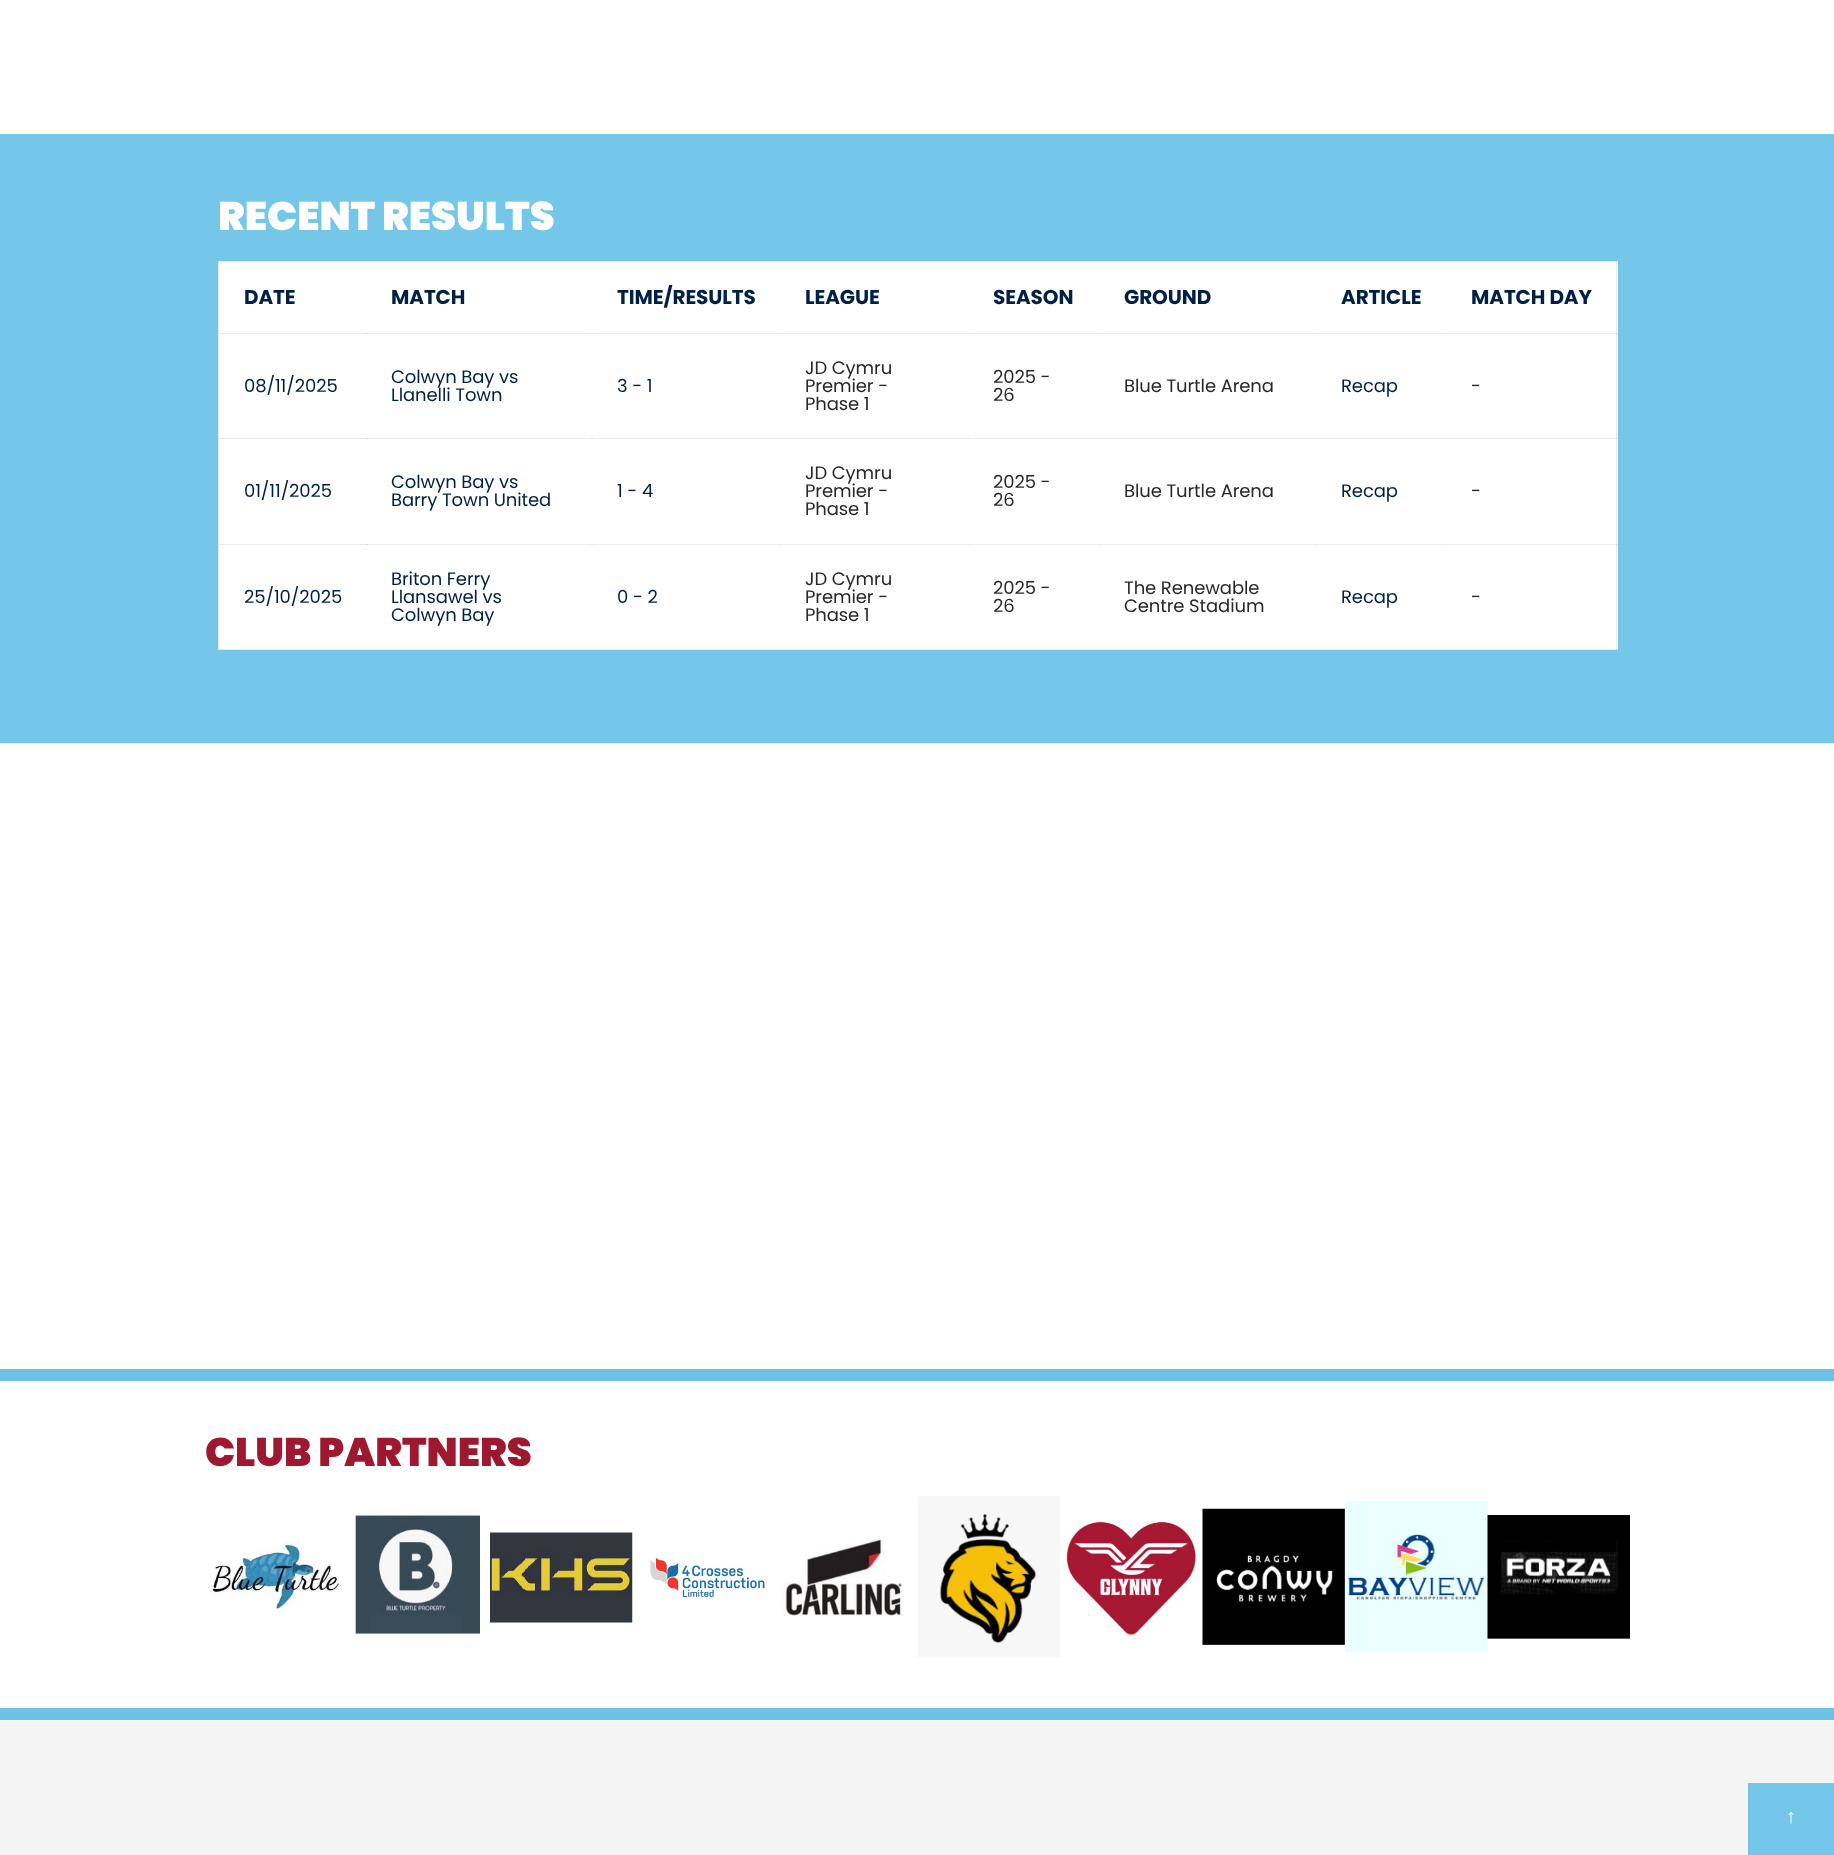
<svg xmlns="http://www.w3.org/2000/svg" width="1834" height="1855">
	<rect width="100%" height="100%" fill="#FFFFFF" />
	<rect x="0" y="134" width="1834" height="609" fill="#75C7EA" />
	<text x="218" y="230" font-family="Poppins" font-size="40" font-weight="900" fill="#FFFFFF">RECENT RESULTS</text>
	<rect x="219" y="262" width="1399" height="387" fill="#FFFFFF" />
	<rect x="218" y="333" width="1400" height="1" fill="#EBEBEB" />
	<rect x="366" y="333" width="2" height="1" fill="#DBDBDB" />
	<rect x="591" y="333" width="2" height="1" fill="#DBDBDB" />
	<rect x="779" y="333" width="1" height="1" fill="#DBDBDB" />
	<rect x="968" y="333" width="1" height="1" fill="#DBDBDB" />
	<rect x="1099" y="333" width="1" height="1" fill="#DBDBDB" />
	<rect x="1315" y="333" width="1" height="1" fill="#DBDBDB" />
	<rect x="1445" y="333" width="1" height="1" fill="#DBDBDB" />
	<rect x="218" y="438" width="1400" height="1" fill="#EBEBEB" />
	<rect x="366" y="438" width="2" height="1" fill="#DBDBDB" />
	<rect x="591" y="438" width="2" height="1" fill="#DBDBDB" />
	<rect x="779" y="438" width="1" height="1" fill="#DBDBDB" />
	<rect x="968" y="438" width="1" height="1" fill="#DBDBDB" />
	<rect x="1099" y="438" width="1" height="1" fill="#DBDBDB" />
	<rect x="1315" y="438" width="1" height="1" fill="#DBDBDB" />
	<rect x="1445" y="438" width="1" height="1" fill="#DBDBDB" />
	<rect x="218" y="544" width="1400" height="1" fill="#EBEBEB" />
	<rect x="366" y="544" width="2" height="1" fill="#DBDBDB" />
	<rect x="591" y="544" width="2" height="1" fill="#DBDBDB" />
	<rect x="779" y="544" width="1" height="1" fill="#DBDBDB" />
	<rect x="968" y="544" width="1" height="1" fill="#DBDBDB" />
	<rect x="1099" y="544" width="1" height="1" fill="#DBDBDB" />
	<rect x="1315" y="544" width="1" height="1" fill="#DBDBDB" />
	<rect x="1445" y="544" width="1" height="1" fill="#DBDBDB" />
	<rect x="218" y="261" width="1" height="389" fill="#EBEBEB" />
	<rect x="218" y="333" width="1" height="1" fill="#DBDBDB" />
	<rect x="218" y="438" width="1" height="1" fill="#DBDBDB" />
	<rect x="218" y="544" width="1" height="1" fill="#DBDBDB" />
	<rect x="218" y="649" width="1400" height="1" fill="#EBEBEB" />
	<rect x="218" y="649" width="1" height="1" fill="#DBDBDB" />
	<rect x="1616" y="261" width="1" height="389" fill="#EBEBEB" />
	<rect x="1616" y="333" width="1" height="1" fill="#DBDBDB" />
	<rect x="1616" y="438" width="1" height="1" fill="#DBDBDB" />
	<rect x="1616" y="544" width="1" height="1" fill="#DBDBDB" />
	<rect x="1616" y="649" width="1" height="1" fill="#DBDBDB" />
	<rect x="218" y="261" width="1400" height="1" fill="#EBEBEB" />
	<rect x="218" y="261" width="1" height="1" fill="#DBDBDB" />
	<rect x="1616" y="261" width="1" height="1" fill="#DBDBDB" />
	<g font-family="Poppins" font-size="20" font-weight="700" letter-spacing="-0.1" fill="#002044">
		<text x="244" y="304">DATE</text>
		<text x="391" y="304">MATCH</text>
		<text x="617" y="304">TIME/RESULTS</text>
		<text x="805" y="304">LEAGUE</text>
		<text x="993" y="304">SEASON</text>
		<text x="1124" y="304">GROUND</text>
		<text x="1341" y="304">ARTICLE</text>
		<text x="1471" y="304">MATCH DAY</text>
	</g>
	<path d="M1598.5 294.5H1588.5L1593.5 301.5ZM1596.5 301.5H1606.5L1601.5 294.5Z" fill="#FFFFFF" />
	<g font-family="Poppins" font-size="18" letter-spacing="-0.1" fill="#002044">
		<text x="244" y="392">08/11/2025</text>
		<text x="391" y="383">Colwyn Bay vs</text>
		<text x="391" y="401">Llanelli Town</text>
		<text x="617" y="392">3 - 1</text>
	</g>
	<g font-family="Poppins" font-size="18" letter-spacing="-0.1" fill="#282828">
		<text x="805" y="374">JD Cymru</text>
		<text x="805" y="392">Premier -</text>
		<text x="805" y="410">Phase 1</text>
		<text x="993" y="383">2025 -</text>
		<text x="993" y="401">26</text>
		<text x="1124" y="392">Blue Turtle Arena</text>
	</g>
	<text x="1341" y="392" font-family="Poppins" font-size="18" letter-spacing="-0.1" fill="#002044">Recap</text>
	<text x="1471" y="392" font-family="Poppins" font-size="18" letter-spacing="-0.1" fill="#282828">-</text>
	<g font-family="Poppins" font-size="18" letter-spacing="-0.1" fill="#002044">
		<text x="244" y="497">01/11/2025</text>
		<text x="391" y="488">Colwyn Bay vs</text>
		<text x="391" y="506">Barry Town United</text>
		<text x="617" y="497">1 - 4</text>
	</g>
	<g font-family="Poppins" font-size="18" letter-spacing="-0.1" fill="#282828">
		<text x="805" y="479">JD Cymru</text>
		<text x="805" y="497">Premier -</text>
		<text x="805" y="515">Phase 1</text>
		<text x="993" y="488">2025 -</text>
		<text x="993" y="506">26</text>
		<text x="1124" y="497">Blue Turtle Arena</text>
	</g>
	<text x="1341" y="497" font-family="Poppins" font-size="18" letter-spacing="-0.1" fill="#002044">Recap</text>
	<text x="1471" y="497" font-family="Poppins" font-size="18" letter-spacing="-0.1" fill="#282828">-</text>
	<g font-family="Poppins" font-size="18" letter-spacing="-0.1" fill="#002044">
		<text x="244" y="603">25/10/2025</text>
		<text x="391" y="585">Briton Ferry</text>
		<text x="391" y="603">Llansawel vs</text>
		<text x="391" y="621">Colwyn Bay</text>
		<text x="617" y="603">0 - 2</text>
	</g>
	<g font-family="Poppins" font-size="18" letter-spacing="-0.1" fill="#282828">
		<text x="805" y="585">JD Cymru</text>
		<text x="805" y="603">Premier -</text>
		<text x="805" y="621">Phase 1</text>
		<text x="993" y="594">2025 -</text>
		<text x="993" y="612">26</text>
		<text x="1124" y="594">The Renewable</text>
		<text x="1124" y="612">Centre Stadium</text>
	</g>
	<text x="1341" y="603" font-family="Poppins" font-size="18" letter-spacing="-0.1" fill="#002044">Recap</text>
	<text x="1471" y="603" font-family="Poppins" font-size="18" letter-spacing="-0.1" fill="#282828">-</text>
	<rect x="0" y="1369" width="1834" height="12" fill="#6EC1E4" />
	<rect x="0" y="1708" width="1834" height="12" fill="#6EC1E4" />
	<text x="205" y="1466" font-family="Poppins" font-size="40" font-weight="900" fill="#9C192F">CLUB PARTNERS</text>
	<image x="210" y="1537" width="132" height="76" href="assets/img1.png" />
	<image x="354" y="1514" width="127" height="121" href="assets/img2.png" />
	<image x="490" y="1532" width="143" height="91" href="assets/img3.png" />
	<image x="632" y="1532" width="133" height="91" href="assets/img4.png" />
	<image x="781" y="1537" width="123" height="79" href="assets/img5.png" />
	<image x="917" y="1496" width="143" height="162" href="assets/img6.png" />
	<image x="1065" y="1519" width="133" height="118" href="assets/img7.png" />
	<image x="1202" y="1508" width="143" height="137" href="assets/img8.png" />
	<image x="1345" y="1501" width="143" height="152" href="assets/img9.png" />
	<image x="1487" y="1515" width="143" height="124" href="assets/img10.png" />
	<rect x="0" y="1721" width="1834" height="134" fill="#F4F4F4" />
	<rect x="1748" y="1783" width="86" height="72" fill="#75C7EA" />
	<text x="1786" y="1823" font-family="Liberation Serif" font-size="20" fill="#FFFFFF">↑</text>
</svg>
